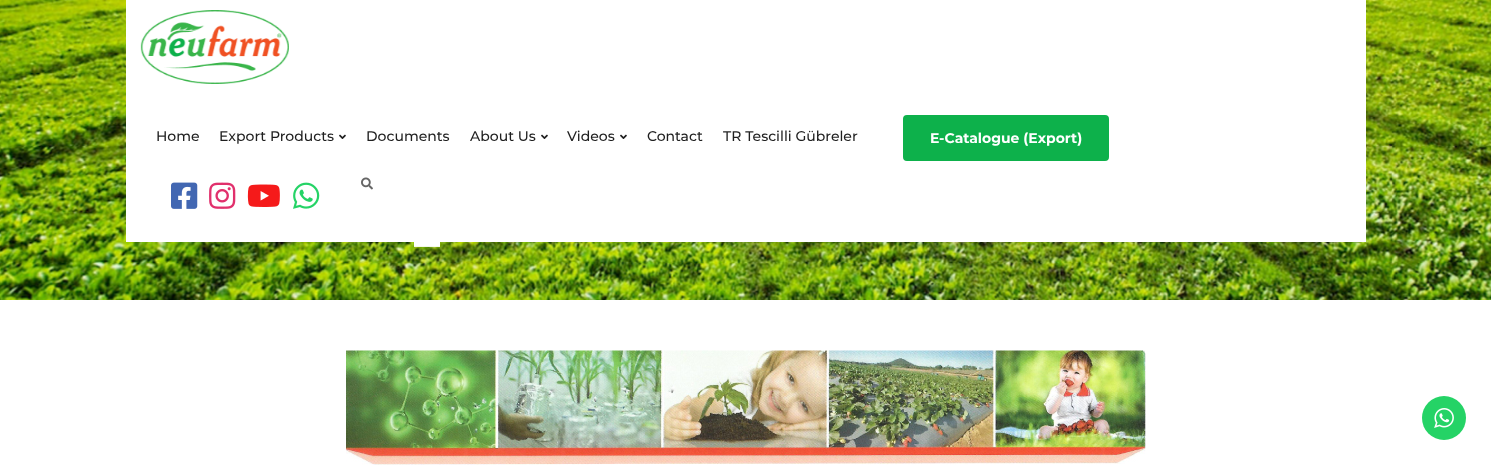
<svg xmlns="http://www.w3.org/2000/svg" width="1491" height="465">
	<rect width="100%" height="100%" fill="#FFFFFF" />
	<image x="0" y="0" width="1491" height="300" href="assets/img8.png" />
	<rect x="126" y="0" width="1240" height="242" fill="#FFFFFF" />
	<image x="140" y="10" width="149" height="74" href="assets/img1.png" />
	<g font-family="Montserrat" font-size="14" font-weight="500" fill="#1F1F1F">
		<text x="156" y="141">Home</text>
		<text x="219" y="141">Export Products</text>
	</g>
	<image x="339" y="134" width="7" height="5" href="assets/img2.png" />
	<g font-family="Montserrat" font-size="14" font-weight="500" fill="#1F1F1F">
		<text x="366" y="141">Documents</text>
		<text x="470" y="141">About Us</text>
	</g>
	<image x="541" y="134" width="7" height="5" href="assets/img2.png" />
	<text x="567" y="141" font-family="Montserrat" font-size="14" font-weight="500" fill="#1F1F1F">Videos</text>
	<image x="620" y="134" width="7" height="5" href="assets/img2.png" />
	<g font-family="Montserrat" font-size="14" font-weight="500" fill="#1F1F1F">
		<text x="647" y="141">Contact</text>
		<text x="723" y="141">TR Tescilli Gübreler</text>
	</g>
	<rect x="904" y="116" width="204" height="44" rx="3" fill="#0DB14B" stroke="#0DB14B" stroke-width="2" />
	<text x="930" y="143" font-family="Montserrat" font-size="14" font-weight="700" fill="#FFFFFF">E-Catalogue (Export)</text>
	<image x="171" y="182" width="27" height="27" href="assets/img3.png" />
	<image x="209" y="182" width="27" height="27" href="assets/img4.png" />
	<image x="247" y="184" width="33" height="23" href="assets/img5.png" />
	<image x="293" y="182" width="27" height="27" href="assets/img6.png" />
	<image x="361" y="177" width="12" height="13" href="assets/img7.png" />
	<text x="414" y="259" font-family="Montserrat" font-size="52" font-weight="700" letter-spacing="-2" fill="#FFFFFF">–</text>
	<image x="346" y="350" width="800" height="115" href="assets/img9.png" />
	<circle cx="1444" cy="418" r="22" fill="#25D366" />
	<image x="1434" y="408" width="20" height="20" href="assets/img10.png" />
</svg>
